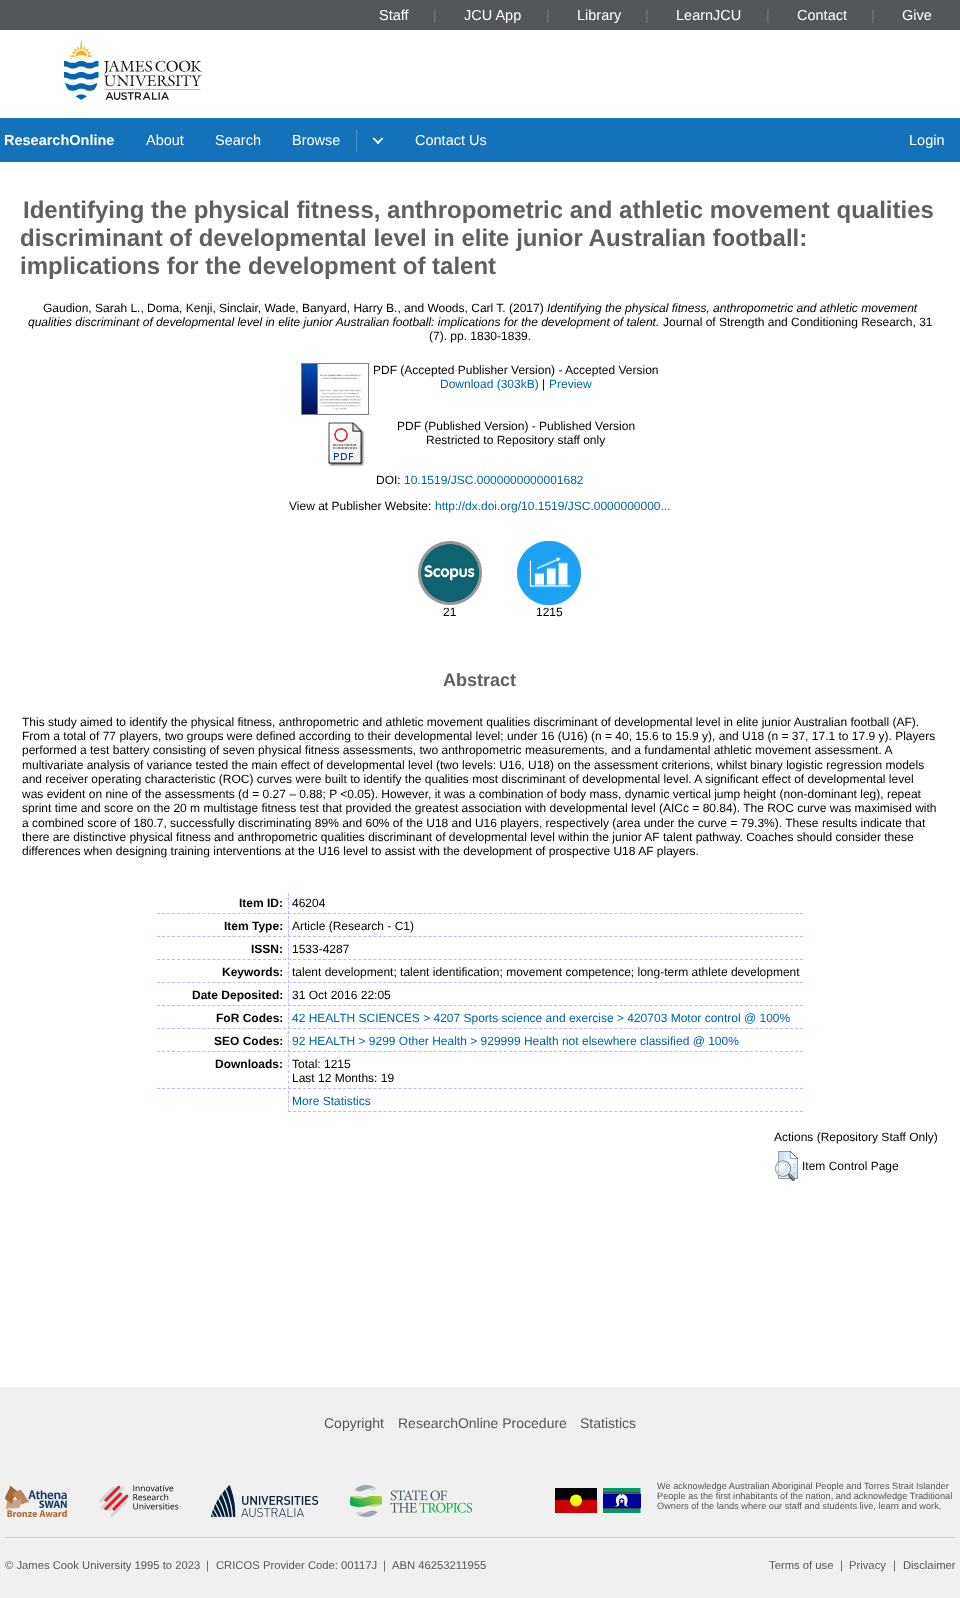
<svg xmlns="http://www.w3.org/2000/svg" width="960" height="1598">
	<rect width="100%" height="100%" fill="#FFFFFF" />
	<rect x="0" y="0" width="960" height="30" fill="#53565A" />
	<text x="379" y="20" font-family="Liberation Sans" font-size="14.5" fill="#FFFFFF">Staff</text>
	<text x="433" y="20" font-family="Liberation Sans" font-size="14.5" fill="#75787B">|</text>
	<text x="464" y="20" font-family="Liberation Sans" font-size="14.5" fill="#FFFFFF">JCU App</text>
	<text x="546" y="20" font-family="Liberation Sans" font-size="14.5" fill="#75787B">|</text>
	<text x="577" y="20" font-family="Liberation Sans" font-size="14.5" fill="#FFFFFF">Library</text>
	<text x="645" y="20" font-family="Liberation Sans" font-size="14.5" fill="#75787B">|</text>
	<text x="676" y="20" font-family="Liberation Sans" font-size="14.5" fill="#FFFFFF">LearnJCU</text>
	<text x="766" y="20" font-family="Liberation Sans" font-size="14.5" fill="#75787B">|</text>
	<text x="797" y="20" font-family="Liberation Sans" font-size="14.5" fill="#FFFFFF">Contact</text>
	<text x="871" y="20" font-family="Liberation Sans" font-size="14.5" fill="#75787B">|</text>
	<text x="902" y="20" font-family="Liberation Sans" font-size="14.5" fill="#FFFFFF">Give</text>
	<image x="64" y="38" width="138" height="62" href="assets/img1.png" />
	<rect x="0" y="118" width="960" height="44" fill="#1372B9" />
	<text x="4" y="145" font-family="Liberation Sans" font-size="14.5" font-weight="700" fill="#FFFFFF">ResearchOnline</text>
	<g font-family="Liberation Sans" font-size="14.5" fill="#FFFFFF">
		<text x="146" y="145">About</text>
		<text x="215" y="145">Search</text>
		<text x="292" y="145">Browse</text>
	</g>
	<rect x="356" y="130" width="1" height="22" fill="#4E95CB" />
	<path d="M383.5 138.5L378 144L376.5 143L382 137.5Z" fill="#FFFFFF" />
	<path d="M379.5 143L378 144L372.5 138.5L374 137.5Z" fill="#FFFFFF" />
	<g font-family="Liberation Sans" font-size="14.5" fill="#FFFFFF">
		<text x="415" y="145">Contact Us</text>
		<text x="909" y="145">Login</text>
	</g>
	<g font-family="Liberation Sans" font-size="24" font-weight="700" fill="#606060">
		<text x="23" y="218">Identifying the physical fitness, anthropometric and athletic movement qualities</text>
		<text x="20" y="246">discriminant of developmental level in elite junior Australian football:</text>
		<text x="20" y="274">implications for the development of talent</text>
	</g>
	<text x="43" y="312" font-family="Liberation Sans" font-size="12" fill="#000000">Gaudion, Sarah L., Doma, Kenji, Sinclair, Wade, Banyard, Harry B., and Woods, Carl T. (2017)</text>
	<g font-family="Liberation Sans" font-size="12" font-style="italic" fill="#000000">
		<text x="547" y="312">Identifying the physical fitness, anthropometric and athletic movement</text>
		<text x="28" y="326">qualities discriminant of developmental level in elite junior Australian football: implications for the development of talent.</text>
	</g>
	<g font-family="Liberation Sans" font-size="12" fill="#000000">
		<text x="663" y="326">Journal of Strength and Conditioning Research, 31</text>
		<text x="429" y="340">(7). pp. 1830-1839.</text>
	</g>
	<image x="301" y="363" width="68" height="52" href="assets/img2.png" />
	<text x="373" y="374" font-family="Liberation Sans" font-size="12" fill="#000000">PDF (Accepted Publisher Version) - Accepted Version</text>
	<text x="440" y="388" font-family="Liberation Sans" font-size="12" fill="#006699">Download (303kB)</text>
	<text x="542" y="388" font-family="Liberation Sans" font-size="12" fill="#000000">|</text>
	<text x="549" y="388" font-family="Liberation Sans" font-size="12" fill="#006699">Preview</text>
	<image x="328" y="422" width="37" height="45" href="assets/img3.png" />
	<g font-family="Liberation Sans" font-size="12" fill="#000000">
		<text x="397" y="430">PDF (Published Version) - Published Version</text>
		<text x="426" y="444">Restricted to Repository staff only</text>
		<text x="376" y="484">DOI:</text>
	</g>
	<text x="404" y="484" font-family="Liberation Sans" font-size="12" fill="#006699">10.1519/JSC.0000000000001682</text>
	<text x="289" y="510" font-family="Liberation Sans" font-size="12" fill="#000000">View at Publisher Website:</text>
	<text x="435" y="510" font-family="Liberation Sans" font-size="12" fill="#006699">http://dx.doi.org/10.1519/JSC.0000000000...</text>
	<image x="418" y="541" width="64" height="64" href="assets/img4.png" />
	<text x="443" y="616" font-family="Liberation Sans" font-size="12" fill="#000000">21</text>
	<image x="517" y="541" width="64" height="64" href="assets/img5.png" />
	<text x="536" y="616" font-family="Liberation Sans" font-size="12" fill="#000000">1215</text>
	<text x="443" y="686" font-family="Liberation Sans" font-size="18" font-weight="700" fill="#606060">Abstract</text>
	<g font-family="Liberation Sans" font-size="12" fill="#000000">
		<text x="22" y="726">This study aimed to identify the physical fitness, anthropometric and athletic movement qualities discriminant of developmental level in elite junior Australian football (AF).</text>
		<text x="22" y="740">From a total of 77 players, two groups were defined according to their developmental level; under 16 (U16) (n = 40, 15.6 to 15.9 y), and U18 (n = 37, 17.1 to 17.9 y). Players</text>
		<text x="22" y="754">performed a test battery consisting of seven physical fitness assessments, two anthropometric measurements, and a fundamental athletic movement assessment. A</text>
		<text x="22" y="769">multivariate analysis of variance tested the main effect of developmental level (two levels: U16, U18) on the assessment criterions, whilst binary logistic regression models</text>
		<text x="22" y="783">and receiver operating characteristic (ROC) curves were built to identify the qualities most discriminant of developmental level. A significant effect of developmental level</text>
		<text x="22" y="798">was evident on nine of the assessments (d = 0.27 – 0.88; P &lt;0.05). However, it was a combination of body mass, dynamic vertical jump height (non-dominant leg), repeat</text>
		<text x="22" y="812">sprint time and score on the 20 m multistage fitness test that provided the greatest association with developmental level (AICc = 80.84). The ROC curve was maximised with</text>
		<text x="22" y="827">a combined score of 180.7, successfully discriminating 89% and 60% of the U18 and U16 players, respectively (area under the curve = 79.3%). These results indicate that</text>
		<text x="22" y="841">there are distinctive physical fitness and anthropometric qualities discriminant of developmental level within the junior AF talent pathway. Coaches should consider these</text>
		<text x="22" y="855">differences when designing training interventions at the U16 level to assist with the development of prospective U18 AF players.</text>
	</g>
	<path d="M157 913.5H286" fill="none" stroke="#BBBBFF" stroke-dasharray="3 2.04" />
	<text x="239" y="907" font-family="Liberation Sans" font-size="12" font-weight="700" fill="#000000">Item ID:</text>
	<path d="M288 913.5H803" fill="none" stroke="#BBBBFF" stroke-dasharray="3 2.02" />
	<path d="M288.5 893V914" fill="none" stroke="#BBBBFF" stroke-dasharray="3 1.5" />
	<text x="292" y="907" font-family="Liberation Sans" font-size="12" fill="#000000">46204</text>
	<path d="M157 936.5H286" fill="none" stroke="#BBBBFF" stroke-dasharray="3 2.04" />
	<text x="224" y="930" font-family="Liberation Sans" font-size="12" font-weight="700" fill="#000000">Item Type:</text>
	<path d="M288 936.5H803" fill="none" stroke="#BBBBFF" stroke-dasharray="3 2.02" />
	<path d="M288.5 916V937" fill="none" stroke="#BBBBFF" stroke-dasharray="3 1.5" />
	<text x="292" y="930" font-family="Liberation Sans" font-size="12" fill="#000000">Article (Research - C1)</text>
	<path d="M157 959.5H286" fill="none" stroke="#BBBBFF" stroke-dasharray="3 2.04" />
	<text x="251" y="953" font-family="Liberation Sans" font-size="12" font-weight="700" fill="#000000">ISSN:</text>
	<path d="M288 959.5H803" fill="none" stroke="#BBBBFF" stroke-dasharray="3 2.02" />
	<path d="M288.5 939V960" fill="none" stroke="#BBBBFF" stroke-dasharray="3 1.5" />
	<text x="292" y="953" font-family="Liberation Sans" font-size="12" fill="#000000">1533-4287</text>
	<path d="M157 982.5H286" fill="none" stroke="#BBBBFF" stroke-dasharray="3 2.04" />
	<text x="222" y="976" font-family="Liberation Sans" font-size="12" font-weight="700" fill="#000000">Keywords:</text>
	<path d="M288 982.5H803" fill="none" stroke="#BBBBFF" stroke-dasharray="3 2.02" />
	<path d="M288.5 962V983" fill="none" stroke="#BBBBFF" stroke-dasharray="3 1.5" />
	<text x="292" y="976" font-family="Liberation Sans" font-size="12" fill="#000000">talent development; talent identification; movement competence; long-term athlete development</text>
	<path d="M157 1005.5H286" fill="none" stroke="#BBBBFF" stroke-dasharray="3 2.04" />
	<text x="192" y="999" font-family="Liberation Sans" font-size="12" font-weight="700" fill="#000000">Date Deposited:</text>
	<path d="M288 1005.5H803" fill="none" stroke="#BBBBFF" stroke-dasharray="3 2.02" />
	<path d="M288.5 985V1006" fill="none" stroke="#BBBBFF" stroke-dasharray="3 1.5" />
	<text x="292" y="999" font-family="Liberation Sans" font-size="12" fill="#000000">31 Oct 2016 22:05</text>
	<path d="M157 1028.5H286" fill="none" stroke="#BBBBFF" stroke-dasharray="3 2.04" />
	<text x="216" y="1022" font-family="Liberation Sans" font-size="12" font-weight="700" fill="#000000">FoR Codes:</text>
	<path d="M288 1028.5H803" fill="none" stroke="#BBBBFF" stroke-dasharray="3 2.02" />
	<path d="M288.5 1008V1029" fill="none" stroke="#BBBBFF" stroke-dasharray="3 1.5" />
	<text x="292" y="1022" font-family="Liberation Sans" font-size="12" fill="#006699">42 HEALTH SCIENCES &gt; 4207 Sports science and exercise &gt; 420703 Motor control @ 100%</text>
	<path d="M157 1051.5H286" fill="none" stroke="#BBBBFF" stroke-dasharray="3 2.04" />
	<text x="214" y="1045" font-family="Liberation Sans" font-size="12" font-weight="700" fill="#000000">SEO Codes:</text>
	<path d="M288 1051.5H803" fill="none" stroke="#BBBBFF" stroke-dasharray="3 2.02" />
	<path d="M288.5 1031V1052" fill="none" stroke="#BBBBFF" stroke-dasharray="3 1.5" />
	<text x="292" y="1045" font-family="Liberation Sans" font-size="12" fill="#006699">92 HEALTH &gt; 9299 Other Health &gt; 929999 Health not elsewhere classified @ 100%</text>
	<path d="M157 1088.5H286" fill="none" stroke="#BBBBFF" stroke-dasharray="3 2.04" />
	<text x="215" y="1068" font-family="Liberation Sans" font-size="12" font-weight="700" fill="#000000">Downloads:</text>
	<path d="M288 1088.5H803" fill="none" stroke="#BBBBFF" stroke-dasharray="3 2.02" />
	<path d="M288.5 1054V1089" fill="none" stroke="#BBBBFF" stroke-dasharray="3 2.33" />
	<g font-family="Liberation Sans" font-size="12" fill="#000000">
		<text x="292" y="1068">Total: 1215</text>
		<text x="292" y="1082">Last 12 Months: 19</text>
	</g>
	<path d="M288 1111.5H803" fill="none" stroke="#BBBBFF" stroke-dasharray="3 2.02" />
	<path d="M288.5 1091V1112" fill="none" stroke="#BBBBFF" stroke-dasharray="3 1.5" />
	<text x="292" y="1105" font-family="Liberation Sans" font-size="12" fill="#006699">More Statistics</text>
	<text x="774" y="1141" font-family="Liberation Sans" font-size="12" fill="#000000">Actions (Repository Staff Only)</text>
	<image x="775" y="1151" width="23" height="30" href="assets/img6.png" />
	<text x="802" y="1170" font-family="Liberation Sans" font-size="12" fill="#000000">Item Control Page</text>
	<rect x="0" y="1387" width="960" height="211" fill="#F0F0F0" />
	<g font-family="Liberation Sans" font-size="14" fill="#53565A">
		<text x="324" y="1428">Copyright</text>
		<text x="398" y="1428">ResearchOnline Procedure</text>
		<text x="580" y="1428">Statistics</text>
	</g>
	<image x="5" y="1485" width="62" height="32" href="assets/img7.png" />
	<image x="99" y="1485" width="80" height="32" href="assets/img8.png" />
	<image x="211" y="1485" width="107" height="32" href="assets/img9.png" />
	<image x="350" y="1485" width="122" height="32" href="assets/img10.png" />
	<rect x="555" y="1488" width="42" height="12" fill="#000000" />
	<rect x="555" y="1500" width="42" height="13" fill="#CC0000" />
	<circle cx="576" cy="1500.5" r="6" fill="#FFFF00" />
	<image x="603" y="1488" width="38" height="25" href="assets/img11.png" />
	<g font-family="Liberation Sans" font-size="9.2" fill="#53565A">
		<text x="657" y="1489">We acknowledge Australian Aboriginal People and Torres Strait Islander</text>
		<text x="657" y="1499">People as the first inhabitants of the nation, and acknowledge Traditional</text>
		<text x="657" y="1509">Owners of the lands where our staff and students live, learn and work.</text>
	</g>
	<rect x="5" y="1537" width="950" height="1" fill="#CCCCCC" />
	<text x="5" y="1569" font-family="Liberation Sans" font-size="11.25" fill="#53565A">© James Cook University 1995 to 2023</text>
	<text x="206" y="1569" font-family="Liberation Sans" font-size="11.25" fill="#666666">|</text>
	<text x="216" y="1569" font-family="Liberation Sans" font-size="11.25" fill="#53565A">CRICOS Provider Code: 00117J</text>
	<text x="383" y="1569" font-family="Liberation Sans" font-size="11.25" fill="#666666">|</text>
	<g font-family="Liberation Sans" font-size="11.25" fill="#53565A">
		<text x="392" y="1569">ABN 46253211955</text>
		<text x="769" y="1569">Terms of use</text>
	</g>
	<text x="840" y="1569" font-family="Liberation Sans" font-size="11.25" fill="#666666">|</text>
	<text x="849" y="1569" font-family="Liberation Sans" font-size="11.25" fill="#53565A">Privacy</text>
	<text x="893" y="1569" font-family="Liberation Sans" font-size="11.25" fill="#666666">|</text>
	<text x="903" y="1569" font-family="Liberation Sans" font-size="11.25" fill="#53565A">Disclaimer</text>
</svg>
